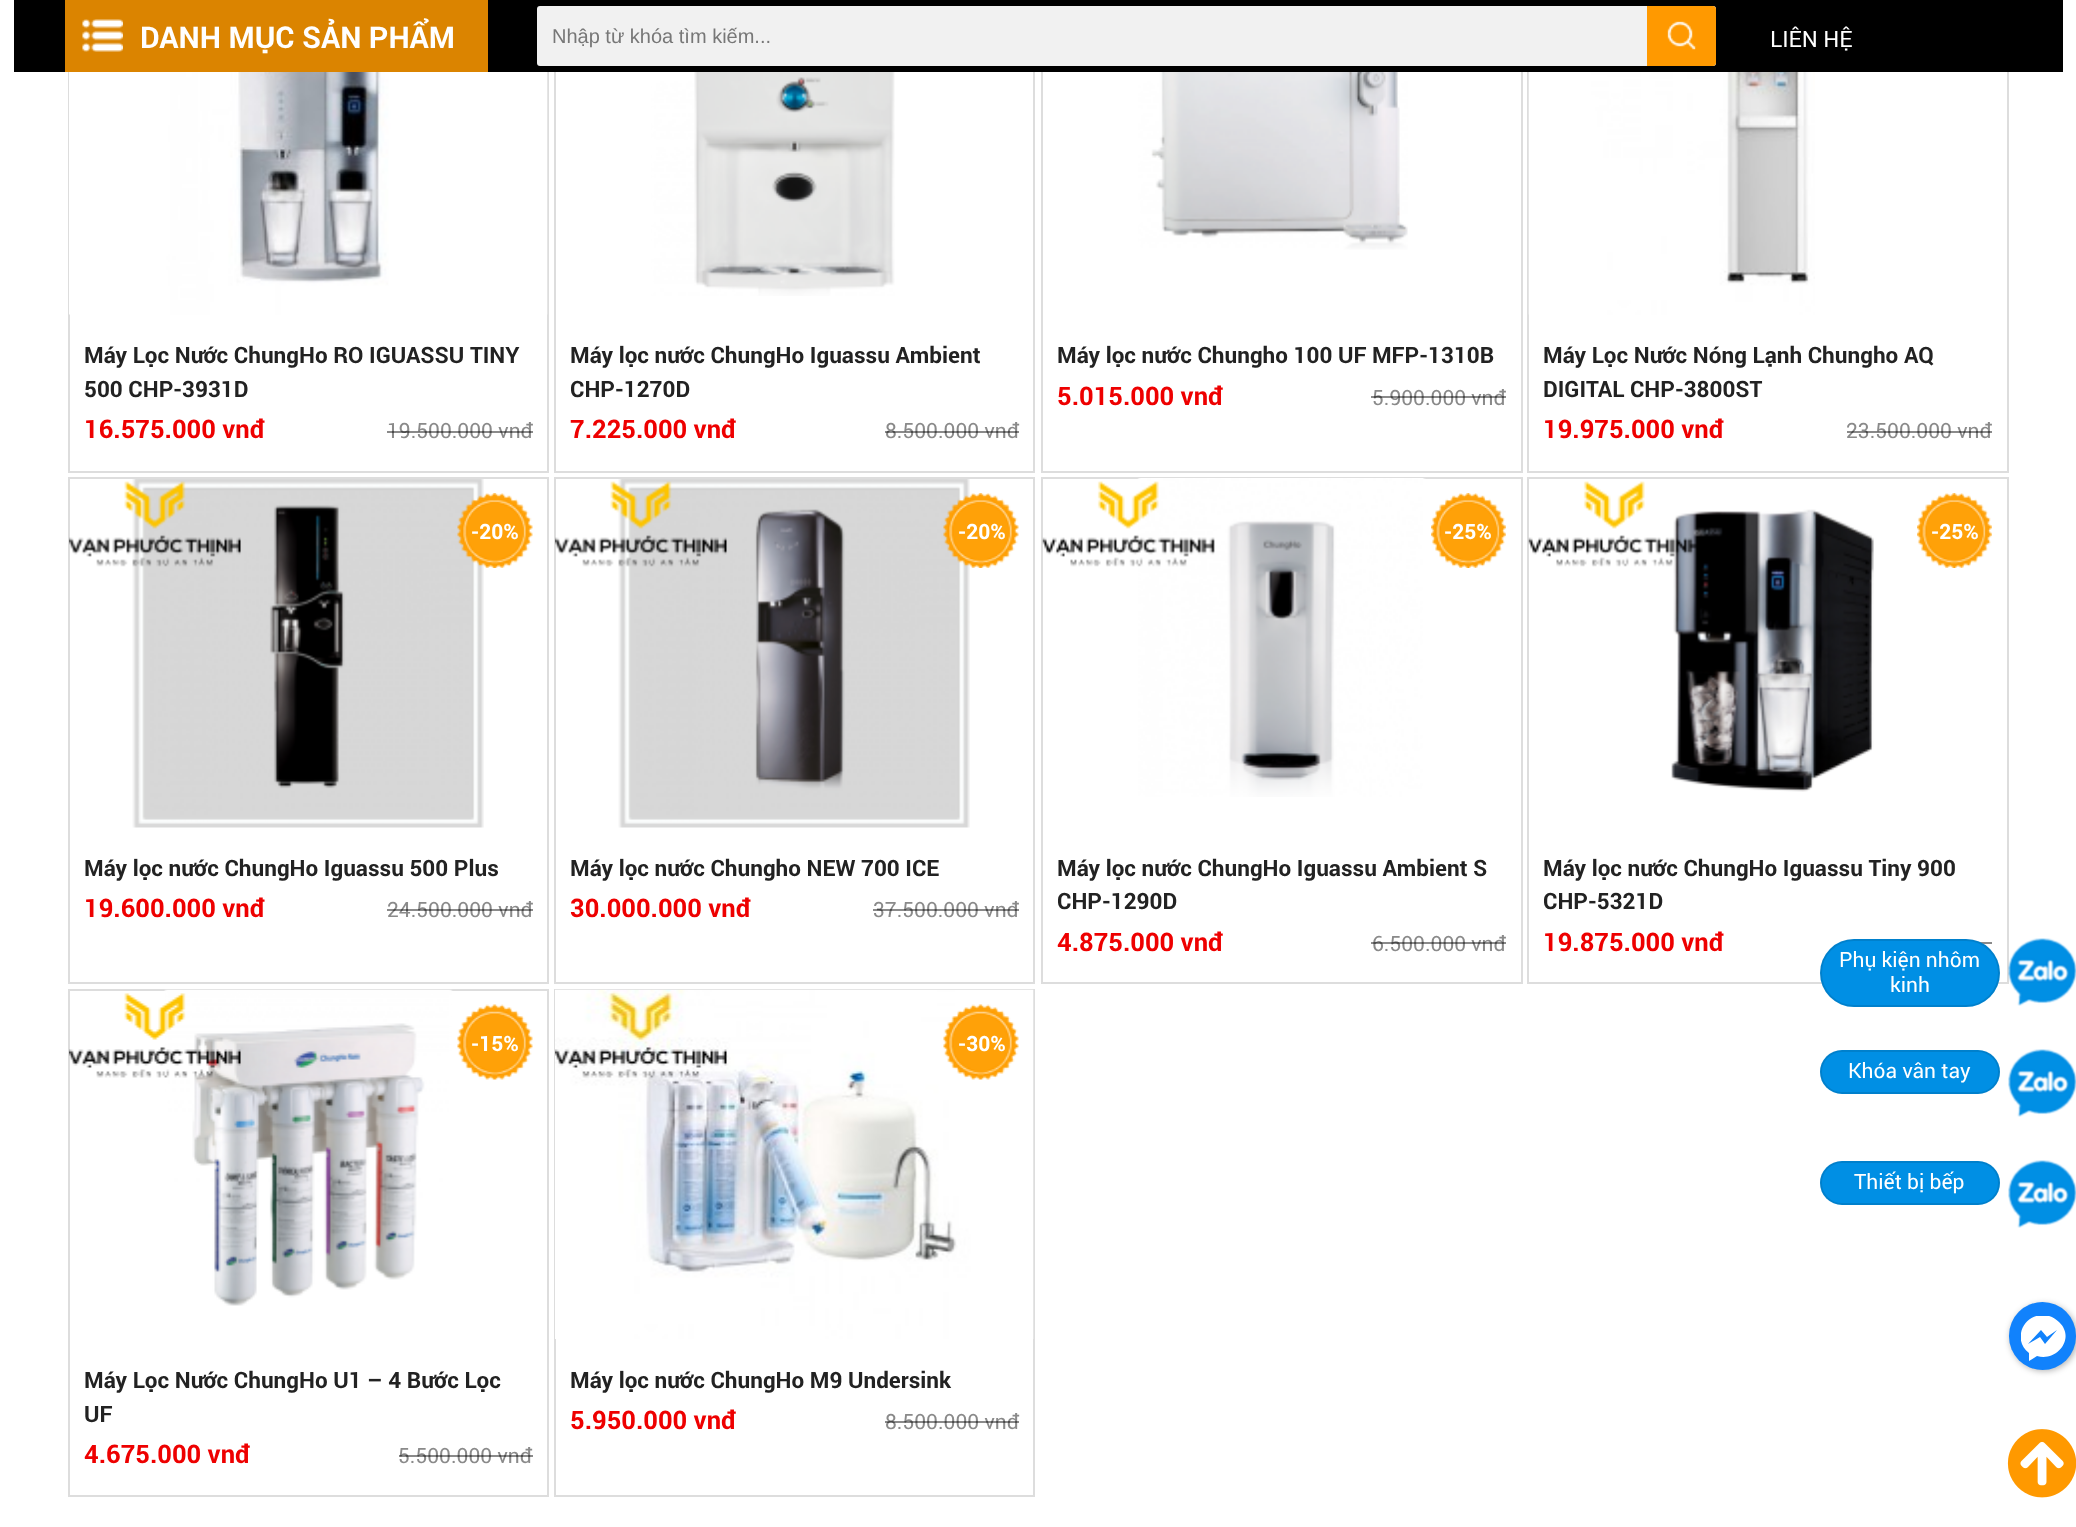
<svg xmlns="http://www.w3.org/2000/svg" width="2076" height="1527">
	<defs>
		<clipPath id="clip1"><rect x="2021" y="1316" width="45" height="45" /></clipPath>
	</defs>
	<rect width="100%" height="100%" fill="#FFFFFF" />
	<rect x="69" y="-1" width="479" height="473" fill="none" stroke="#DDDDDD" stroke-width="2" />
	<rect x="555" y="-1" width="479" height="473" fill="none" stroke="#DDDDDD" stroke-width="2" />
	<rect x="1042" y="-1" width="480" height="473" fill="none" stroke="#DDDDDD" stroke-width="2" />
	<rect x="1528" y="-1" width="480" height="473" fill="none" stroke="#DDDDDD" stroke-width="2" />
	<rect x="14" y="0" width="2049" height="72" fill="#000000" />
	<rect x="65" y="0" width="423" height="72" fill="#DB8400" />
	<image x="82" y="19" width="41" height="33" href="assets/img1.png" />
	<text x="140" y="48" font-family="Roboto" font-size="30" font-weight="700" fill="#FFFFFF">DANH MỤC SẢN PHẨM</text>
	<rect x="537" y="6" width="1179" height="60" rx="3" fill="#F1F1F1" />
	<text x="552" y="43" font-family="Liberation Sans" font-size="20" fill="#777777">Nhập từ khóa tìm kiếm...</text>
	<path d="M1647 6H1713C1714.5 6 1716 7.5 1716 9V63C1716 64.5 1714.5 66 1713 66H1647Z" fill="#FF9900" />
	<image x="1667" y="21" width="29" height="29" href="assets/img2.png" />
	<text x="1770" y="47" font-family="Roboto" font-size="22.5" fill="#FFFFFF">LIÊN HỆ</text>
	<image x="69" y="72" width="479" height="243" href="assets/img3.png" />
	<g font-family="Roboto" font-size="22.5" font-weight="700" fill="#222222">
		<text x="84" y="363">Máy Lọc Nước ChungHo RO IGUASSU TINY</text>
		<text x="84" y="397">500 CHP-3931D</text>
	</g>
	<text x="84" y="438" font-family="Roboto" font-size="25.5" font-weight="700" fill="#EE0000">16.575.000 vnđ</text>
	<text x="387" y="438" font-family="Roboto" font-size="21" fill="#8A8A8A">19.500.000 vnđ</text>
	<rect x="387" y="431" width="111" height="2" fill="#000000" fill-opacity="0.46" />
	<rect x="498" y="431" width="35" height="2" fill="#000000" fill-opacity="0.46" />
	<image x="650" y="72" width="245" height="224" href="assets/img4.png" />
	<g font-family="Roboto" font-size="22.5" font-weight="700" fill="#222222">
		<text x="570" y="363">Máy lọc nước ChungHo Iguassu Ambient</text>
		<text x="570" y="397">CHP-1270D</text>
	</g>
	<text x="570" y="438" font-family="Roboto" font-size="25.5" font-weight="700" fill="#EE0000">7.225.000 vnđ</text>
	<text x="885" y="438" font-family="Roboto" font-size="21" fill="#8A8A8A">8.500.000 vnđ</text>
	<rect x="885" y="431" width="99" height="2" fill="#000000" fill-opacity="0.46" />
	<rect x="984" y="431" width="35" height="2" fill="#000000" fill-opacity="0.46" />
	<image x="1137" y="72" width="271" height="178" href="assets/img5.png" />
	<text x="1057" y="363" font-family="Roboto" font-size="22.5" font-weight="700" fill="#222222">Máy lọc nước Chungho 100 UF MFP-1310B</text>
	<text x="1057" y="405" font-family="Roboto" font-size="25.5" font-weight="700" fill="#EE0000">5.015.000 vnđ</text>
	<text x="1372" y="405" font-family="Roboto" font-size="21" fill="#8A8A8A">5.900.000</text>
	<rect x="1371" y="396" width="101" height="2" fill="#000000" fill-opacity="0.46" />
	<text x="1471" y="405" font-family="Roboto" font-size="21" fill="#8A8A8A">vnđ</text>
	<rect x="1472" y="396" width="34" height="2" fill="#000000" fill-opacity="0.46" />
	<image x="1528" y="72" width="287" height="243" href="assets/img6.png" />
	<g font-family="Roboto" font-size="22.5" font-weight="700" fill="#222222">
		<text x="1543" y="363">Máy Lọc Nước Nóng Lạnh Chungho AQ</text>
		<text x="1543" y="397">DIGITAL CHP-3800ST</text>
	</g>
	<text x="1543" y="438" font-family="Roboto" font-size="25.5" font-weight="700" fill="#EE0000">19.975.000 vnđ</text>
	<text x="1846" y="438" font-family="Roboto" font-size="21" fill="#8A8A8A">23.500.000</text>
	<rect x="1847" y="431" width="111" height="2" fill="#000000" fill-opacity="0.46" />
	<text x="1957" y="438" font-family="Roboto" font-size="21" fill="#8A8A8A">vnđ</text>
	<rect x="1958" y="431" width="34" height="2" fill="#000000" fill-opacity="0.46" />
	<rect x="69" y="478" width="479" height="505" fill="none" stroke="#DDDDDD" stroke-width="2" />
	<image x="69" y="479" width="415" height="349" href="assets/img7.png" />
	<image x="457" y="493" width="76" height="75" href="assets/img8.png" />
	<text x="471" y="539" font-family="Roboto" font-size="21" font-weight="700" fill="#FFFFFF">-20%</text>
	<text x="84" y="876" font-family="Roboto" font-size="22.5" font-weight="700" fill="#222222">Máy lọc nước ChungHo Iguassu 500 Plus</text>
	<text x="84" y="917" font-family="Roboto" font-size="25.5" font-weight="700" fill="#EE0000">19.600.000 vnđ</text>
	<text x="387" y="917" font-family="Roboto" font-size="21" fill="#8A8A8A">24.500.000 vnđ</text>
	<rect x="387" y="909" width="111" height="2" fill="#000000" fill-opacity="0.46" />
	<rect x="498" y="909" width="35" height="2" fill="#000000" fill-opacity="0.46" />
	<rect x="555" y="478" width="479" height="505" fill="none" stroke="#DDDDDD" stroke-width="2" />
	<image x="555" y="479" width="415" height="349" href="assets/img9.png" />
	<image x="943" y="493" width="76" height="75" href="assets/img8.png" />
	<text x="958" y="539" font-family="Roboto" font-size="21" font-weight="700" fill="#FFFFFF">-20%</text>
	<text x="570" y="876" font-family="Roboto" font-size="22.5" font-weight="700" fill="#222222">Máy lọc nước Chungho NEW 700 ICE</text>
	<text x="570" y="917" font-family="Roboto" font-size="25.5" font-weight="700" fill="#EE0000">30.000.000 vnđ</text>
	<text x="873" y="917" font-family="Roboto" font-size="21" fill="#8A8A8A">37.500.000 vnđ</text>
	<rect x="873" y="909" width="111" height="2" fill="#000000" fill-opacity="0.46" />
	<rect x="984" y="909" width="35" height="2" fill="#000000" fill-opacity="0.46" />
	<rect x="1042" y="478" width="480" height="505" fill="none" stroke="#DDDDDD" stroke-width="2" />
	<image x="1042" y="478" width="384" height="319" href="assets/img10.png" />
	<image x="1431" y="493" width="75" height="75" href="assets/img11.png" />
	<text x="1444" y="539" font-family="Roboto" font-size="21" font-weight="700" fill="#FFFFFF">-25%</text>
	<g font-family="Roboto" font-size="22.5" font-weight="700" fill="#222222">
		<text x="1057" y="876">Máy lọc nước ChungHo Iguassu Ambient S</text>
		<text x="1057" y="909">CHP-1290D</text>
	</g>
	<text x="1057" y="951" font-family="Roboto" font-size="25.5" font-weight="700" fill="#EE0000">4.875.000 vnđ</text>
	<text x="1372" y="951" font-family="Roboto" font-size="21" fill="#8A8A8A">6.500.000</text>
	<rect x="1371" y="942" width="101" height="2" fill="#000000" fill-opacity="0.46" />
	<text x="1471" y="951" font-family="Roboto" font-size="21" fill="#8A8A8A">vnđ</text>
	<rect x="1472" y="942" width="34" height="2" fill="#000000" fill-opacity="0.46" />
	<rect x="1528" y="478" width="480" height="505" fill="none" stroke="#DDDDDD" stroke-width="2" />
	<image x="1528" y="481" width="346" height="311" href="assets/img12.png" />
	<image x="1917" y="493" width="75" height="75" href="assets/img11.png" />
	<text x="1931" y="539" font-family="Roboto" font-size="21" font-weight="700" fill="#FFFFFF">-25%</text>
	<g font-family="Roboto" font-size="22.5" font-weight="700" fill="#222222">
		<text x="1543" y="876">Máy lọc nước ChungHo Iguassu Tiny 900</text>
		<text x="1543" y="909">CHP-5321D</text>
	</g>
	<text x="1543" y="951" font-family="Roboto" font-size="25.5" font-weight="700" fill="#EE0000">19.875.000 vnđ</text>
	<rect x="1980" y="942" width="12" height="2" fill="#000000" fill-opacity="0.46" />
	<rect x="69" y="990" width="479" height="506" fill="none" stroke="#DDDDDD" stroke-width="2" />
	<image x="69" y="989" width="384" height="317" href="assets/img13.png" />
	<image x="457" y="1004" width="76" height="76" href="assets/img14.png" />
	<text x="471" y="1051" font-family="Roboto" font-size="21" font-weight="700" fill="#FFFFFF">-15%</text>
	<g font-family="Roboto" font-size="22.5" font-weight="700" fill="#222222">
		<text x="84" y="1388">Máy Lọc Nước ChungHo U1 – 4 Bước Lọc</text>
		<text x="84" y="1422">UF</text>
	</g>
	<text x="84" y="1463" font-family="Roboto" font-size="25.5" font-weight="700" fill="#EE0000">4.675.000 vnđ</text>
	<text x="398" y="1463" font-family="Roboto" font-size="21" fill="#8A8A8A">5.500.000 vnđ</text>
	<rect x="399" y="1455" width="99" height="2" fill="#000000" fill-opacity="0.46" />
	<rect x="498" y="1455" width="35" height="2" fill="#000000" fill-opacity="0.46" />
	<rect x="555" y="990" width="479" height="506" fill="none" stroke="#DDDDDD" stroke-width="2" />
	<image x="555" y="989" width="479" height="350" href="assets/img15.png" />
	<image x="943" y="1004" width="76" height="76" href="assets/img16.png" />
	<text x="958" y="1051" font-family="Roboto" font-size="21" font-weight="700" fill="#FFFFFF">-30%</text>
	<text x="570" y="1388" font-family="Roboto" font-size="22.5" font-weight="700" fill="#222222">Máy lọc nước ChungHo M9 Undersink</text>
	<text x="570" y="1429" font-family="Roboto" font-size="25.5" font-weight="700" fill="#EE0000">5.950.000 vnđ</text>
	<text x="885" y="1429" font-family="Roboto" font-size="21" fill="#8A8A8A">8.500.000 vnđ</text>
	<rect x="885" y="1421" width="99" height="2" fill="#000000" fill-opacity="0.46" />
	<rect x="984" y="1421" width="35" height="2" fill="#000000" fill-opacity="0.46" />
	<rect x="1820" y="939" width="180" height="68" rx="34" fill="#008FE4" />
	<rect x="1821" y="940" width="178" height="66" rx="33" fill="none" stroke="#000000" stroke-opacity="0.1" stroke-width="2" />
	<g font-family="Roboto" font-size="21" fill="#FFFFFF">
		<text x="1839" y="967">Phụ kiện nhôm</text>
		<text x="1890" y="992">kinh</text>
	</g>
	<image x="2008" y="938" width="68" height="68" href="assets/img17.png" />
	<rect x="1820" y="1050" width="180" height="44" rx="22" fill="#008FE4" />
	<rect x="1821" y="1051" width="178" height="42" rx="21" fill="none" stroke="#000000" stroke-opacity="0.1" stroke-width="2" />
	<text x="1848" y="1078" font-family="Roboto" font-size="21" fill="#FFFFFF">Khóa vân tay</text>
	<image x="2008" y="1049" width="68" height="68" href="assets/img18.png" />
	<rect x="1820" y="1161" width="180" height="44" rx="22" fill="#008FE4" />
	<rect x="1821" y="1162" width="178" height="42" rx="21" fill="none" stroke="#000000" stroke-opacity="0.1" stroke-width="2" />
	<text x="1854" y="1189" font-family="Roboto" font-size="21" fill="#FFFFFF">Thiết bị bếp</text>
	<image x="2008" y="1160" width="68" height="68" href="assets/img18.png" />
	<rect x="2010" y="1304" width="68" height="67" rx="33.5" fill="#000000" fill-opacity="0.3" filter="blur(3px)" />
	<rect x="2009" y="1302" width="67" height="68" rx="33.5" fill="#1182FC" />
	<g clip-path="url(#clip1)">
		<path d="M2043 1315C2023 1315 2012 1340 2029 1353V1361L2037 1356C2057 1362 2076 1338 2059 1322C2055 1318 2049 1315 2043 1315ZM2045 1344L2040 1337L2028 1344L2041 1330L2047 1337L2057 1330Z" fill="#FFFFFF" />
	</g>
	<image x="2007" y="1429" width="69" height="69" href="assets/img19.png" />
</svg>
